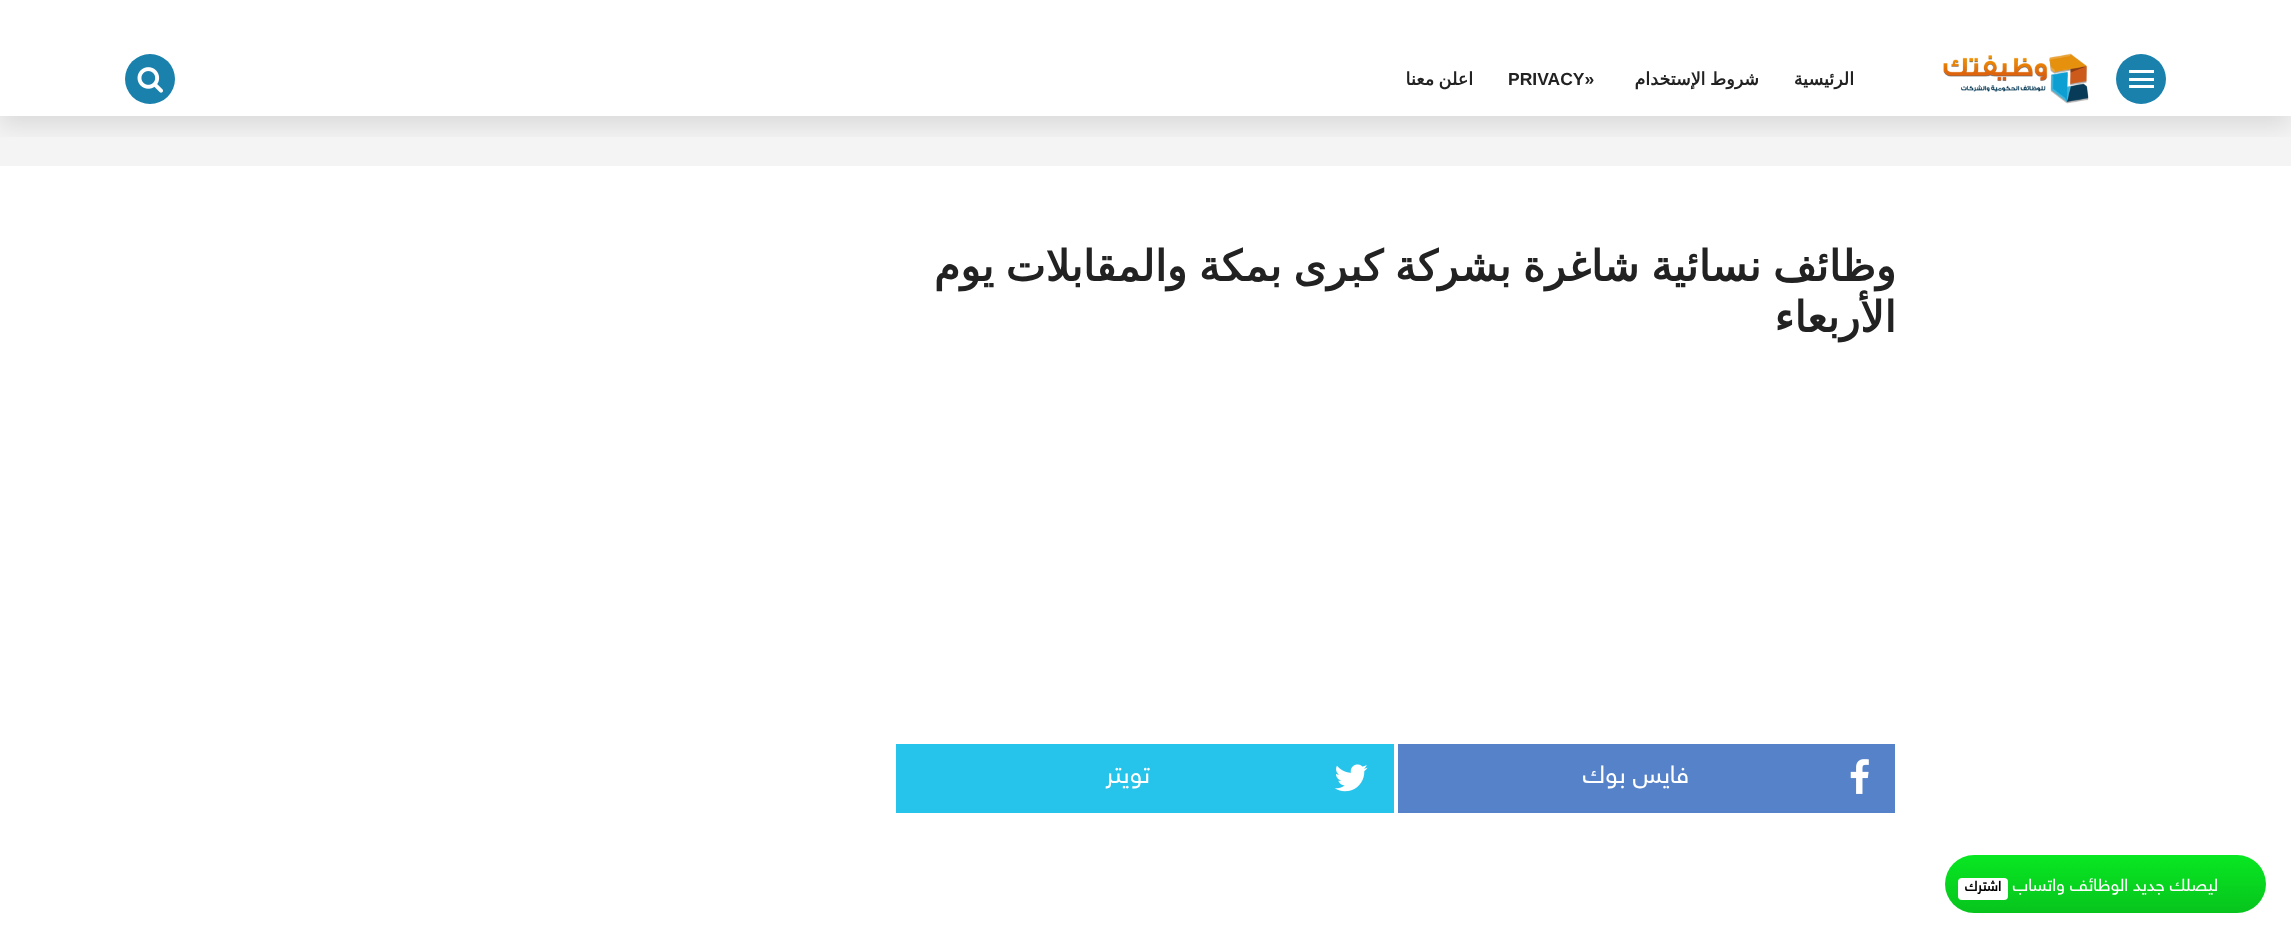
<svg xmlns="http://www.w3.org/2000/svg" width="2291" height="937">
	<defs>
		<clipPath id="clip1"><rect x="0" y="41" width="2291" height="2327" /></clipPath>
		<clipPath id="clip2"><rect x="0" y="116" width="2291" height="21" /></clipPath>
		<linearGradient id="g1" gradientUnits="userSpaceOnUse" x1="2106" y1="855" x2="2106" y2="913"><stop offset="0" stop-color="#08E722" /><stop offset="1" stop-color="#07C41D" /></linearGradient>
	</defs>
	<rect width="100%" height="100%" fill="#FFFFFF" />
	<rect x="0" y="116" width="2291" height="50" fill="#F4F4F4" />
	<g clip-path="url(#clip1)">
		<g clip-path="url(#clip2)">
			<rect x="-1" y="51" width="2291" height="75" fill="#000000" fill-opacity="0.1" filter="blur(12.5px)" />
		</g>
	</g>
	<circle cx="2141" cy="79" r="25" fill="#1A81AD" />
	<rect x="2129" y="70" width="25" height="3" fill="#FFFFFF" />
	<rect x="2129" y="78" width="25" height="3" fill="#FFFFFF" />
	<rect x="2129" y="85" width="25" height="3" fill="#FFFFFF" />
	<image x="1943" y="53" width="146" height="51" href="assets/img1.png" />
	<g font-family="DejaVu Sans" font-size="17.5" font-weight="700" direction="rtl" fill="#222222">
		<text x="1854" y="85">الرئيسية</text>
		<text x="1759" y="85" word-spacing="-1">شروط الإستخدام</text>
	</g>
	<text x="1508" y="85" font-family="Liberation Sans" font-size="17.5" font-weight="700" fill="#222222">PRIVACY»</text>
	<text x="1473" y="85" word-spacing="-1" font-family="DejaVu Sans" font-size="17.5" font-weight="700" direction="rtl" fill="#222222">اعلن معنا</text>
	<circle cx="150" cy="79" r="25" fill="#1A81AD" />
	<image x="137" y="67" width="26" height="26" href="assets/img2.png" />
	<g font-family="DejaVu Sans" font-size="42.5" font-weight="700" direction="rtl" fill="#222222">
		<text x="1896" y="281" word-spacing="-1.75">وظائف نسائية شاغرة بشركة كبرى بمكة والمقابلات يوم</text>
		<text x="1896" y="332">الأربعاء</text>
	</g>
	<rect x="1398" y="744" width="497" height="69" fill="#5582C9" />
	<image x="1850" y="759" width="19" height="35" href="assets/img3.png" />
	<text x="1689" y="783" font-family="'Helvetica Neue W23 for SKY'" font-size="25" direction="rtl" fill="#FFFFFF">فايس بوك</text>
	<rect x="896" y="744" width="498" height="69" fill="#26C3EB" />
	<image x="1334" y="764" width="34" height="28" href="assets/img4.png" />
	<text x="1150" y="783" font-family="'Helvetica Neue W23 for SKY'" font-size="25" direction="rtl" fill="#FFFFFF">تويتر</text>
	<rect x="1945" y="855" width="321" height="58" rx="29" fill="url(#g1)" />
	<text x="2218" y="891" font-family="'Helvetica Neue W23 for SKY'" font-size="17.5" direction="rtl" fill="#FFFFFF">ليصلك جديد الوظائف واتساب</text>
	<rect x="1958" y="878" width="50" height="22" rx="4" fill="#FFFFFF" />
	<text x="2001" y="891" font-family="'Helvetica Neue W23 for SKY'" font-size="14" font-weight="700" direction="rtl" fill="#000000">اشترك</text>
</svg>
